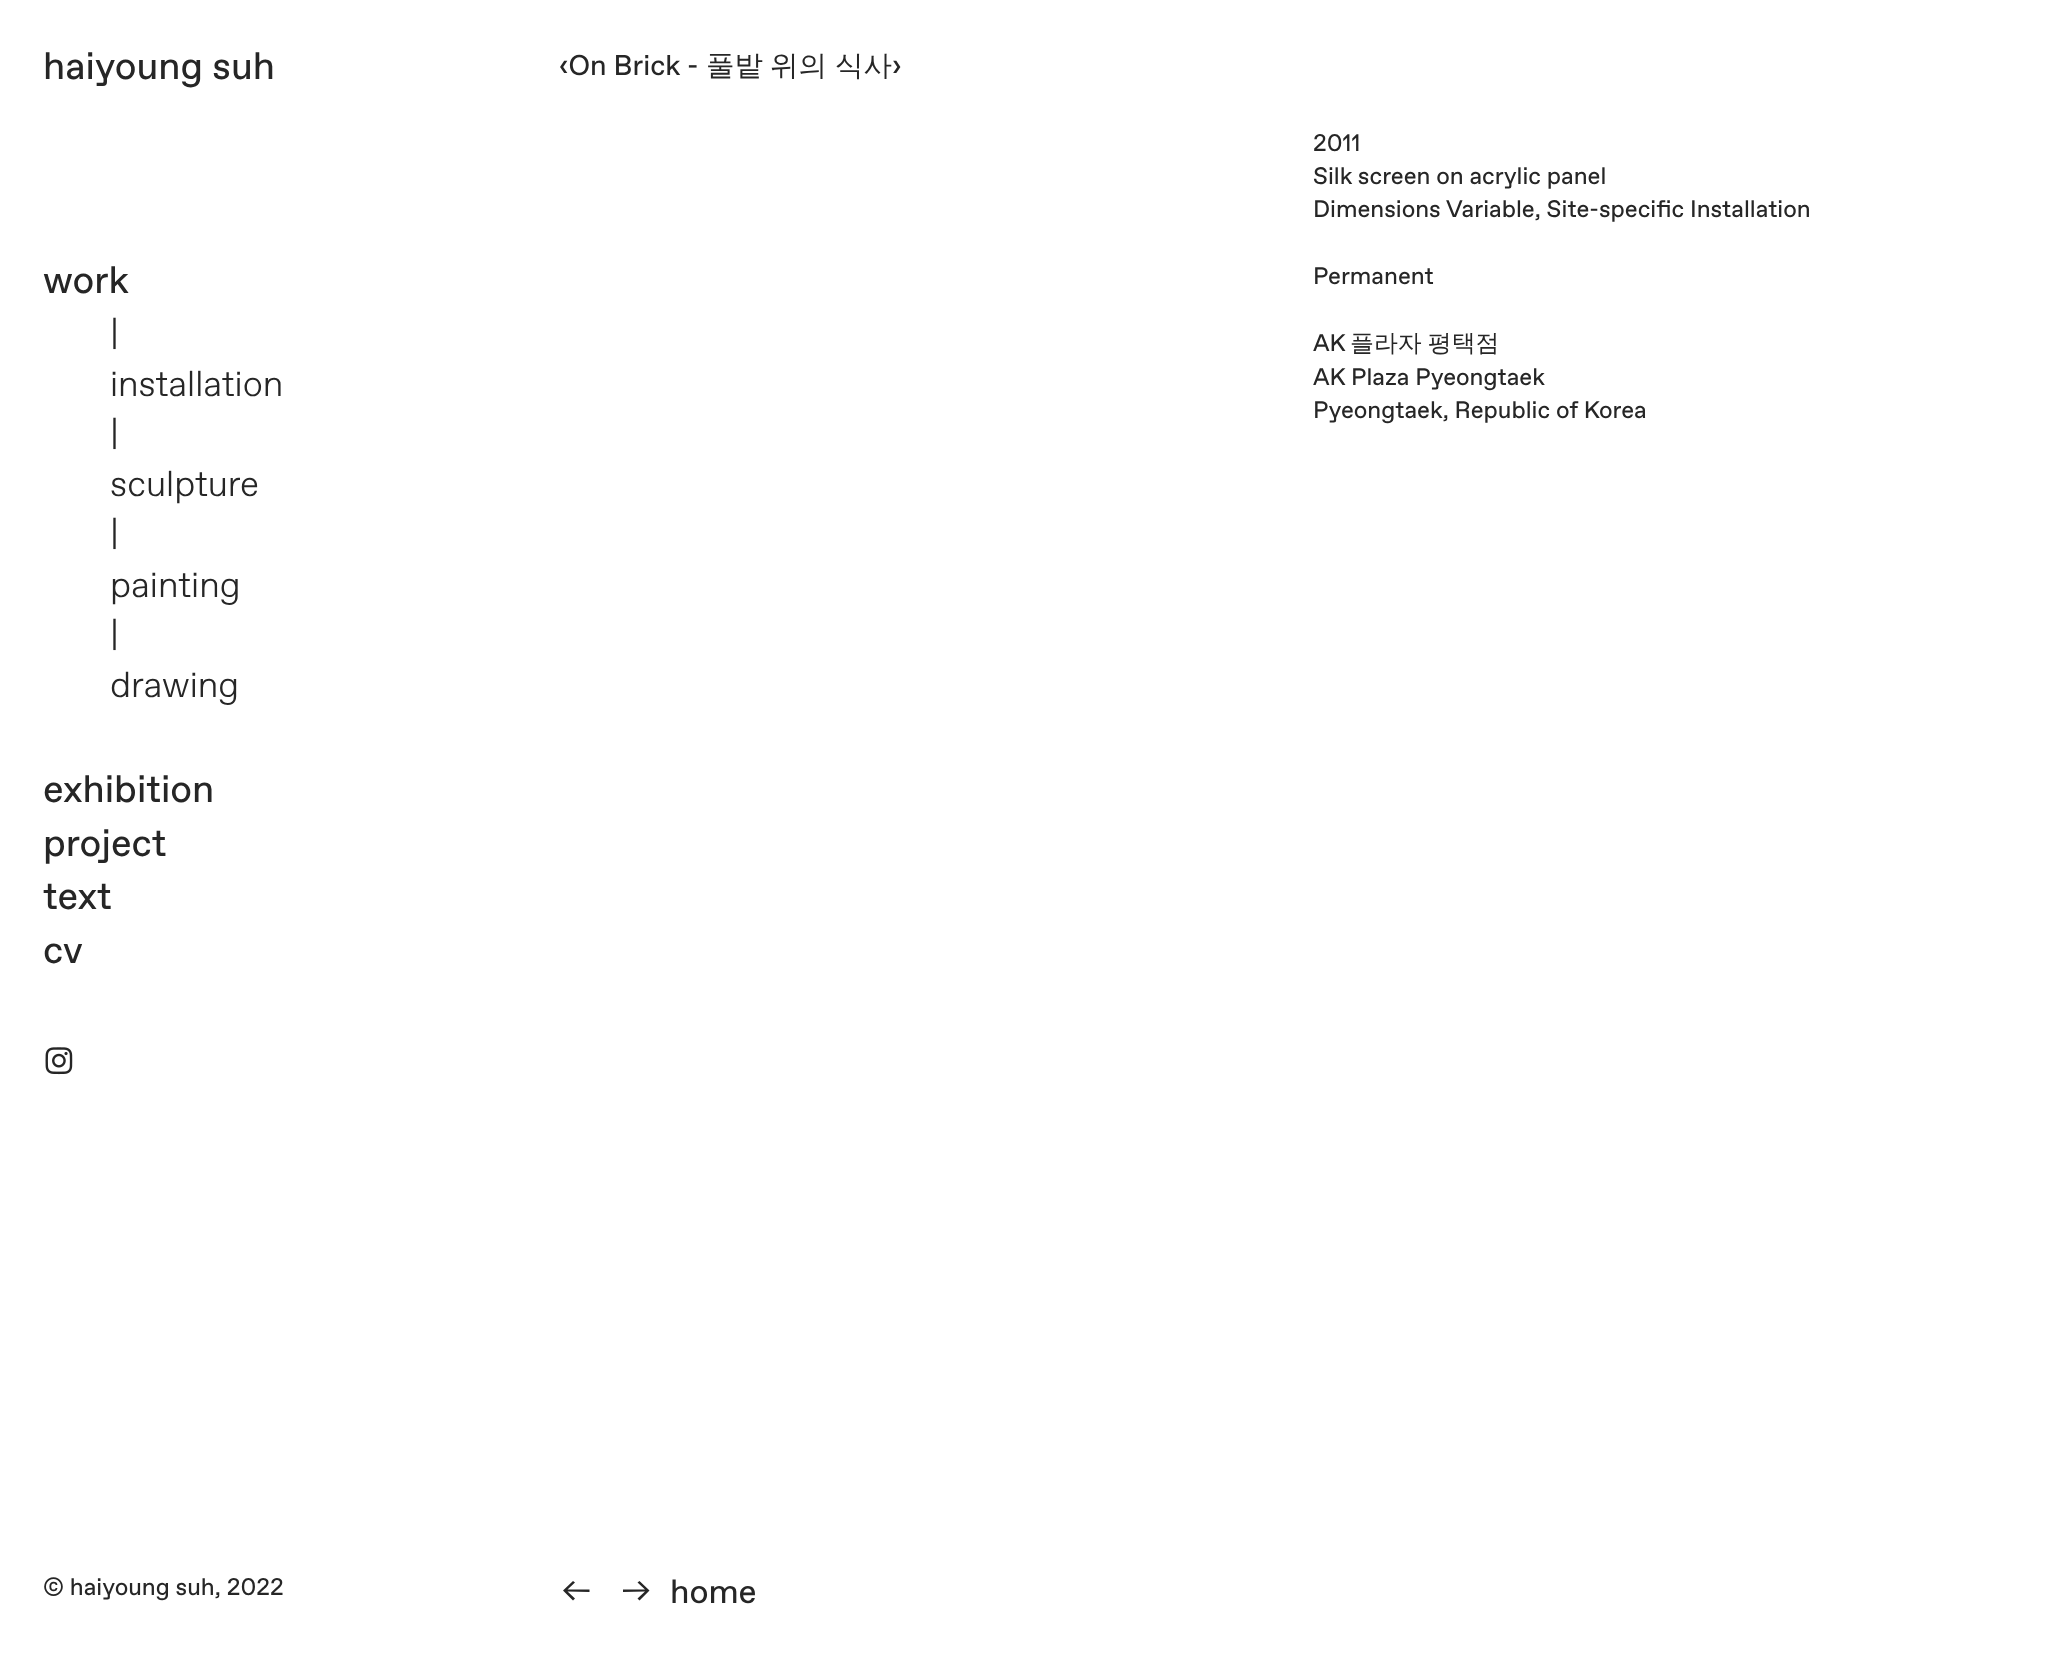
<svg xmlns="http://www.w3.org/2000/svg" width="2062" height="1659">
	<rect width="100%" height="100%" fill="#FFFFFF" />
	<g font-family="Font" font-size="38.25" fill="#262626">
		<text x="43" y="79">haiyoung suh</text>
		<text x="43" y="293">work</text>
	</g>
	<g font-family="Font" font-size="36" font-weight="300" fill="#262626">
		<text x="110" y="346">|</text>
		<text x="110" y="396">installation</text>
		<text x="110" y="446">|</text>
		<text x="110" y="496">sculpture</text>
		<text x="110" y="546">|</text>
		<text x="110" y="597">painting</text>
		<text x="110" y="647">|</text>
		<text x="110" y="697">drawing</text>
	</g>
	<g font-family="Font" font-size="38.25" fill="#262626">
		<text x="43" y="802">exhibition</text>
		<text x="43" y="856">project</text>
		<text x="43" y="909">text</text>
		<text x="43" y="963">cv</text>
	</g>
	<image x="45" y="1047" width="28" height="28" href="assets/img1.png" />
	<text x="43" y="1595" font-family="Font" font-size="23.9" fill="#262626">© haiyoung suh, 2022</text>
	<text x="559" y="75" font-family="Font" font-size="28.5" fill="#262626">‹On Brick -</text>
	<g font-family="WenQuanYi Zen Hei" font-size="28.5" font-weight="500" fill="#262626">
		<text x="706" y="75">풀밭</text>
		<text x="770" y="75">위의</text>
		<text x="835" y="75">식사</text>
	</g>
	<text x="892" y="75" font-family="Font" font-size="28.5" fill="#262626">›</text>
	<g font-family="Font" font-size="23.9" fill="#262626">
		<text x="1313" y="151">2011</text>
		<text x="1313" y="184">Silk screen on acrylic panel</text>
		<text x="1313" y="217">Dimensions Variable, Site-specific Installation</text>
		<text x="1313" y="284">Permanent</text>
		<text x="1313" y="351">AK</text>
	</g>
	<text x="1350" y="351" word-spacing="-1" font-family="WenQuanYi Zen Hei" font-size="23.9" font-weight="500" fill="#262626">플라자 평택점</text>
	<g font-family="Font" font-size="23.9" fill="#262626">
		<text x="1313" y="385">AK Plaza Pyeongtaek</text>
		<text x="1313" y="418">Pyeongtaek, Republic of Korea</text>
	</g>
	<path d="M589.5 1589.5H567.5L575 1582.5L573 1581L563 1590.5L573 1600.5L575 1598.5L567.5 1591.5L589.5 1592Z" fill="#262626" />
	<path d="M623 1592L645 1591.5L637.5 1598.5L639.5 1600.5L649.5 1590.5L639.5 1581L637.5 1582.5L645 1589.5H623Z" fill="#262626" />
	<text x="670" y="1603" font-family="Font" font-size="33.5" fill="#262626">home</text>
</svg>
